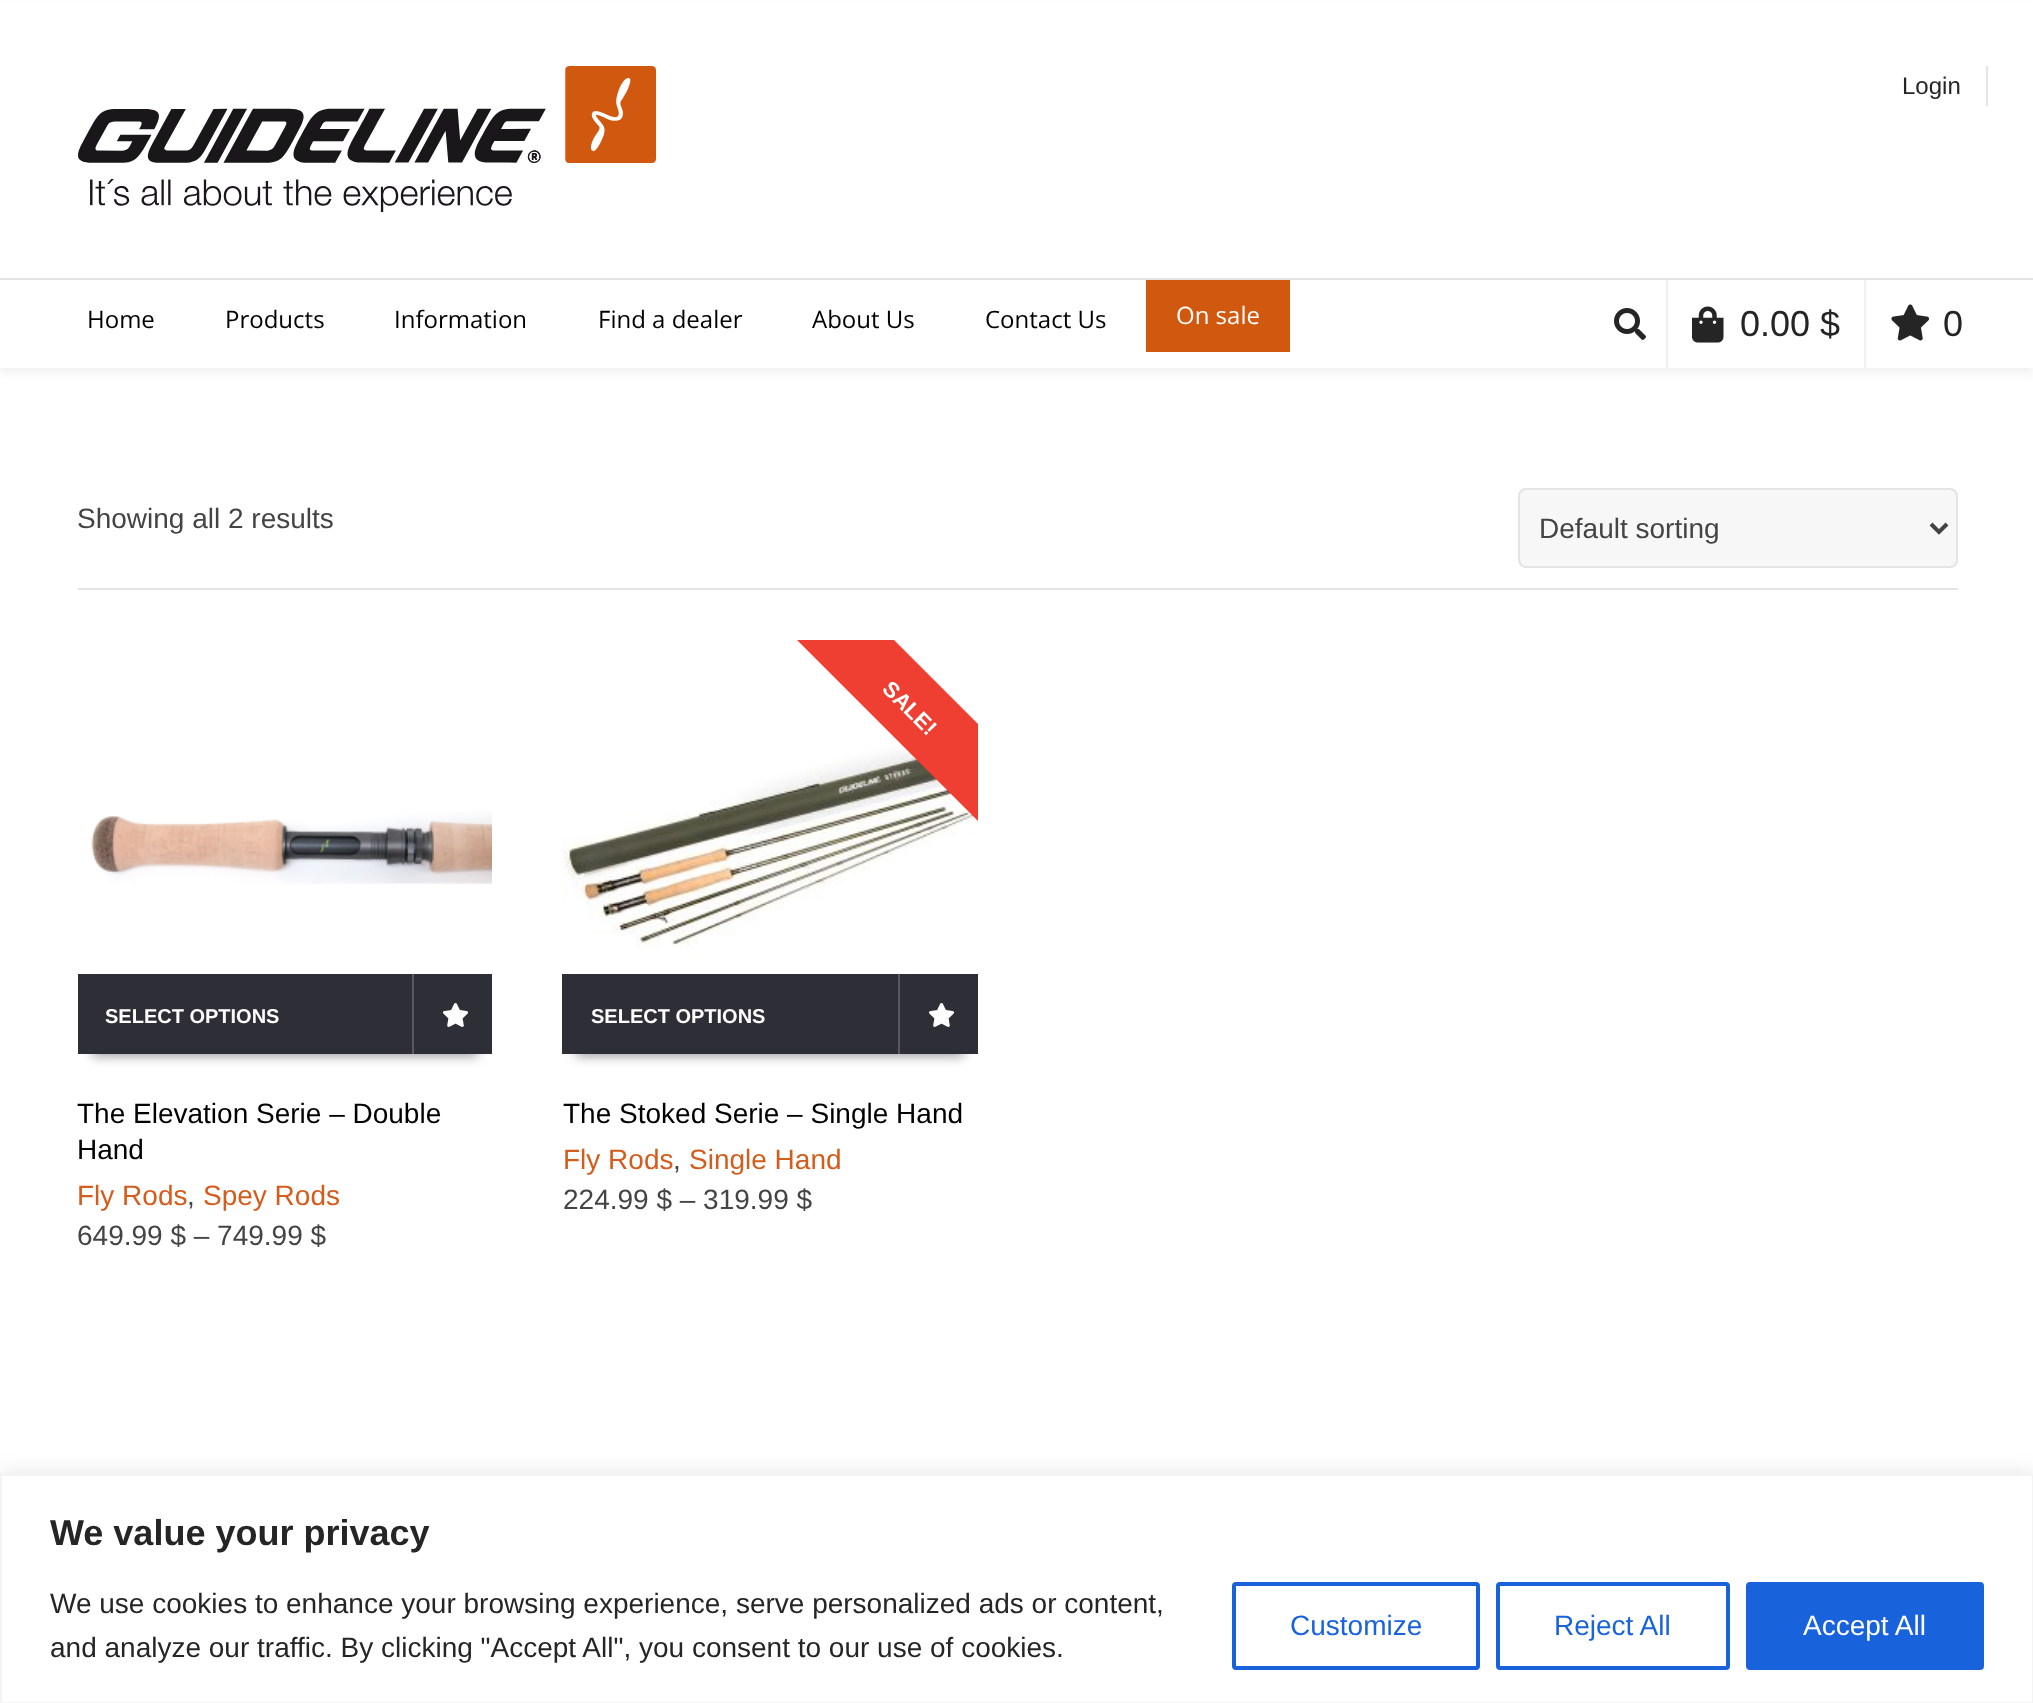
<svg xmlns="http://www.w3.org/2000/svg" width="2033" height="1703">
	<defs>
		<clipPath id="clip1"><rect x="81" y="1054" width="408" height="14" /></clipPath>
		<clipPath id="clip2"><rect x="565" y="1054" width="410" height="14" /></clipPath>
		<clipPath id="clip3"><rect x="562" y="640" width="416" height="414" /></clipPath>
	</defs>
	<rect width="100%" height="100%" fill="#FFFFFF" />
	<rect x="0" y="6" width="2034" height="368" fill="#000000" fill-opacity="0.05" filter="blur(5px)" />
	<rect x="0" y="2" width="2033" height="366" fill="#FFFFFF" />
	<image x="78" y="66" width="578" height="146" href="assets/img1.png" />
	<rect x="1986" y="66" width="2" height="40" fill="#E4E4E4" />
	<text x="1902" y="94" font-family="Liberation Sans" font-size="24" fill="#252525">Login</text>
	<rect x="0" y="278" width="2033" height="2" fill="#E4E4E4" />
	<g font-family="Open Sans" font-size="24" fill="#000000">
		<text x="87" y="328">Home</text>
		<text x="225" y="328">Products</text>
		<text x="394" y="328">Information</text>
		<text x="598" y="328">Find a dealer</text>
		<text x="812" y="328">About Us</text>
		<text x="985" y="328">Contact Us</text>
	</g>
	<rect x="1146" y="280" width="144" height="72" fill="#D1590F" />
	<text x="1176" y="324" font-family="Open Sans" font-size="24" fill="#FFFFFF">On sale</text>
	<image x="1614" y="308" width="32" height="32" href="assets/img2.png" />
	<rect x="1666" y="280" width="2" height="88" fill="#F0F0F0" />
	<image x="1692" y="306" width="32" height="37" href="assets/img3.png" />
	<text x="1740" y="336" font-family="Liberation Sans" font-size="36" fill="#252525">0.00 $</text>
	<rect x="1864" y="280" width="2" height="88" fill="#F0F0F0" />
	<image x="1891" y="304" width="39" height="37" href="assets/img4.png" />
	<text x="1943" y="336" font-family="Liberation Sans" font-size="36" fill="#252525">0</text>
	<text x="77" y="528" font-family="Liberation Sans" font-size="28" fill="#444444">Showing all 2 results</text>
	<rect x="1519" y="489" width="438" height="78" rx="7" fill="#F7F7F7" stroke="#E4E4E4" stroke-width="2" />
	<path d="M1931 524L1939 532L1947 524" fill="none" stroke="#444444" stroke-width="4" />
	<text x="1539" y="538" font-family="Liberation Sans" font-size="28" fill="#444444">Default sorting</text>
	<rect x="78" y="588" width="1880" height="2" fill="#E4E4E4" />
	<g clip-path="url(#clip1)">
		<rect x="92" y="670" width="386" height="386" fill="#999999" filter="blur(6px)" />
	</g>
	<image x="78" y="738" width="414" height="212" href="assets/img5.png" />
	<rect x="78" y="974" width="414" height="80" fill="#2E2E36" />
	<text x="105" y="1023" font-family="Liberation Sans" font-size="20" font-weight="700" fill="#FFFFFF">SELECT OPTIONS</text>
	<rect x="412" y="974" width="2" height="80" fill="#58585E" />
	<image x="443" y="1003" width="25" height="24" href="assets/img6.png" />
	<g font-family="Liberation Sans" font-size="28" fill="#000000">
		<text x="77" y="1123">The Elevation Serie – Double</text>
		<text x="77" y="1159">Hand</text>
	</g>
	<text x="77" y="1205" font-family="Liberation Sans" font-size="28" fill="#D45D1D">Fly Rods</text>
	<text x="187" y="1205" font-family="Liberation Sans" font-size="28" fill="#444444">,</text>
	<text x="203" y="1205" font-family="Liberation Sans" font-size="28" fill="#D45D1D">Spey Rods</text>
	<text x="77" y="1245" font-family="Liberation Sans" font-size="28" fill="#444444">649.99 $ – 749.99 $</text>
	<g clip-path="url(#clip2)">
		<rect x="576" y="670" width="388" height="386" fill="#999999" filter="blur(6px)" />
	</g>
	<image x="562" y="702" width="416" height="272" href="assets/img7.png" />
	<g clip-path="url(#clip3)">
		<path d="M845 591L1026 772L978 821L797 640Z" fill="#EF3F32" />
	</g>
	<text x="881" y="690" transform="rotate(45 881 690)" font-family="Liberation Sans" font-size="22" font-weight="700" fill="#FFFFFF">SALE!</text>
	<rect x="562" y="974" width="416" height="80" fill="#2E2E36" />
	<text x="591" y="1023" font-family="Liberation Sans" font-size="20" font-weight="700" fill="#FFFFFF">SELECT OPTIONS</text>
	<rect x="898" y="974" width="2" height="80" fill="#58585E" />
	<image x="929" y="1003" width="25" height="24" href="assets/img6.png" />
	<text x="563" y="1123" font-family="Liberation Sans" font-size="28" fill="#000000">The Stoked Serie – Single Hand</text>
	<text x="563" y="1169" font-family="Liberation Sans" font-size="28" fill="#D45D1D">Fly Rods</text>
	<text x="673" y="1169" font-family="Liberation Sans" font-size="28" fill="#444444">,</text>
	<text x="689" y="1169" font-family="Liberation Sans" font-size="28" fill="#D45D1D">Single Hand</text>
	<text x="563" y="1209" font-family="Liberation Sans" font-size="28" fill="#444444">224.99 $ – 319.99 $</text>
	<rect x="0" y="1472" width="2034" height="230" fill="#ACABAB" fill-opacity="0.3" filter="blur(10px)" />
	<rect x="1" y="1475" width="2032" height="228" fill="#FFFFFF" stroke="#F4F4F4" stroke-width="2" />
	<text x="50" y="1545" font-family="Liberation Sans" font-size="36" font-weight="700" fill="#252525">We value your privacy</text>
	<g font-family="Liberation Sans" font-size="28" fill="#252525">
		<text x="50" y="1613">We use cookies to enhance your browsing experience, serve personalized ads or content,</text>
		<text x="50" y="1657">and analyze our traffic. By clicking "Accept All", you consent to our use of cookies.</text>
	</g>
	<rect x="1234" y="1584" width="244" height="84" rx="2" fill="none" stroke="#1863DC" stroke-width="4" />
	<text x="1290" y="1635" font-family="Liberation Sans" font-size="28" fill="#1863DC">Customize</text>
	<rect x="1498" y="1584" width="230" height="84" rx="2" fill="none" stroke="#1863DC" stroke-width="4" />
	<text x="1554" y="1635" font-family="Liberation Sans" font-size="28" fill="#1863DC">Reject All</text>
	<rect x="1748" y="1584" width="234" height="84" rx="2" fill="#1863DC" stroke="#1863DC" stroke-width="4" />
	<text x="1803" y="1635" font-family="Liberation Sans" font-size="28" fill="#FFFFFF">Accept All</text>
</svg>
